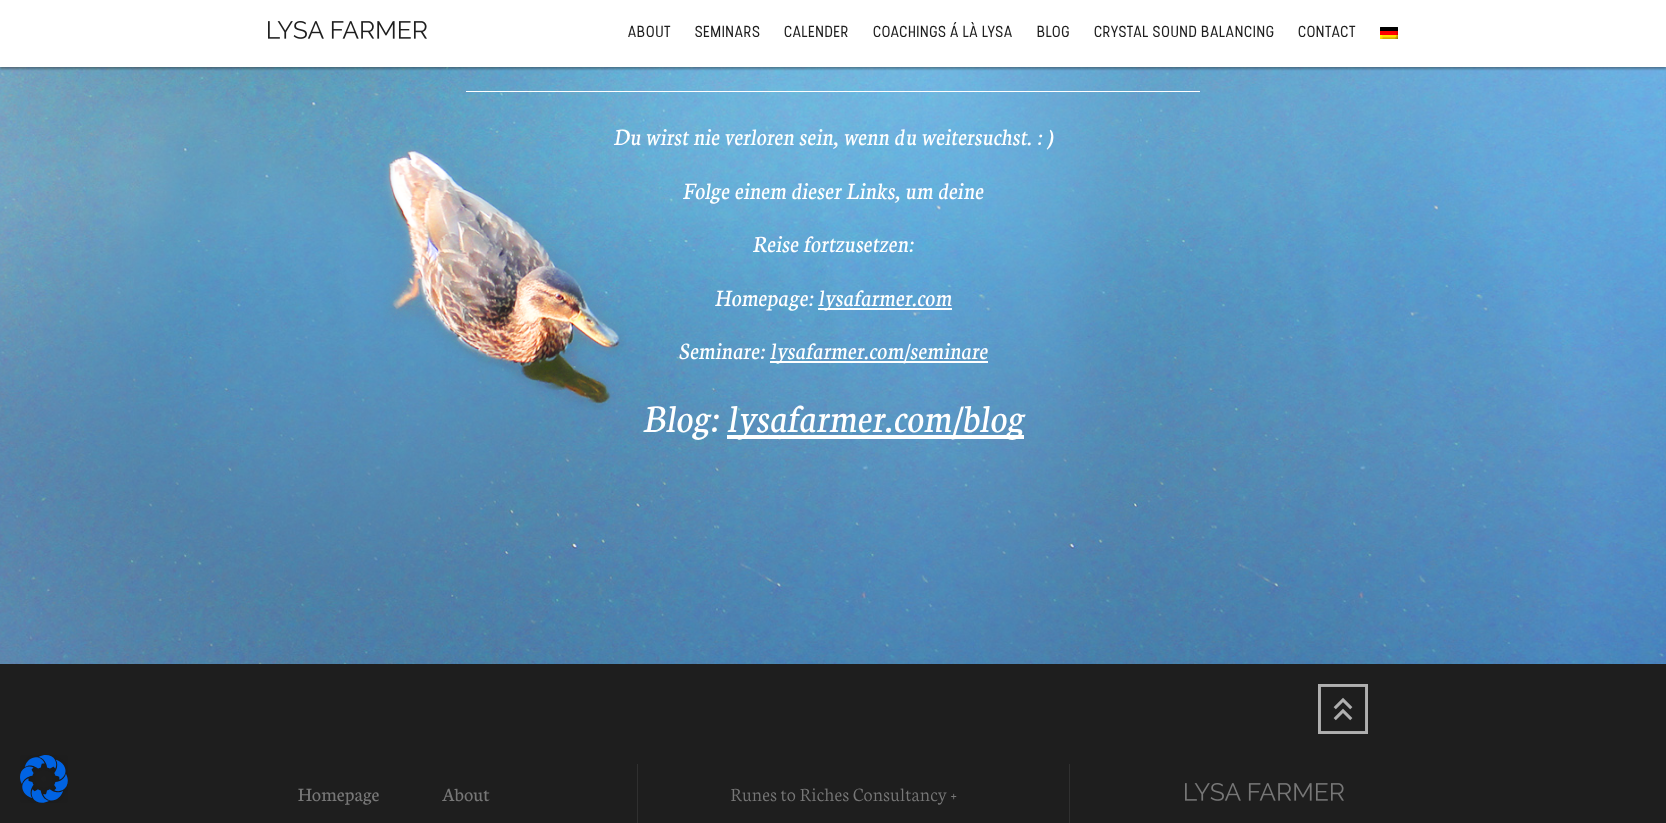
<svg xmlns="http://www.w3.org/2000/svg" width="1666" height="823">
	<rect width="100%" height="100%" fill="#FFFFFF" />
	<rect x="0" y="664" width="1666" height="159" fill="#1E1E1E" />
	<image x="20" y="755" width="48" height="48" href="assets/img1.png" />
	<image x="0" y="67" width="1666" height="597" href="assets/img4.png" />
	<rect x="0" y="2" width="1666" height="67" fill="#1E1E1E" fill-opacity="0.4" filter="blur(1px)" />
	<rect x="0" y="0" width="1666" height="67" fill="#FFFFFF" />
	<image x="268" y="21" width="159" height="18" href="assets/img2.png" />
	<g font-family="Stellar" font-size="16" fill="#1E1E1E">
		<text x="628" y="37">ABOUT</text>
		<text x="695" y="37">SEMINARS</text>
		<text x="784" y="37">CALENDER</text>
		<text x="873" y="37">COACHINGS Á LÀ LYSA</text>
		<text x="1037" y="37">BLOG</text>
		<text x="1094" y="37">CRYSTAL SOUND BALANCING</text>
		<text x="1298" y="37">CONTACT</text>
	</g>
	<image x="1380" y="27" width="18" height="12" href="assets/img3.png" />
	<rect x="466" y="91" width="734" height="1" fill="#FFFFFF" />
	<text x="613" y="145" font-family="Neuton" font-size="25" font-style="italic" fill="#FFFFFF">Du wirst nie verloren sein, wenn du weitersuchst. : )</text>
	<image x="383" y="147" width="243" height="263" href="assets/img5.png" />
	<g font-family="Neuton" font-size="25" font-style="italic" fill="#FFFFFF">
		<text x="682" y="199">Folge einem dieser Links, um deine</text>
		<text x="752" y="252">Reise fortzusetzen:</text>
		<text x="714" y="306">Homepage:</text>
	</g>
	<rect x="818" y="308" width="134" height="2" fill="#FFFFFF" />
	<g font-family="Neuton" font-size="25" font-style="italic" fill="#FFFFFF">
		<text x="818" y="306">lysafarmer.com</text>
		<text x="678" y="359">Seminare:</text>
	</g>
	<rect x="770" y="361" width="218" height="2" fill="#FFFFFF" />
	<text x="770" y="359" font-family="Neuton" font-size="25" font-style="italic" fill="#FFFFFF">lysafarmer.com/seminare</text>
	<text x="642" y="432" font-family="Neuton" font-size="42" font-style="italic" fill="#FFFFFF">Blog:</text>
	<rect x="727" y="435" width="297" height="4" fill="#FFFFFF" />
	<text x="727" y="432" font-family="Neuton" font-size="42" font-style="italic" fill="#FFFFFF">lysafarmer.com/blog</text>
	<image x="1318" y="684" width="50" height="50" href="assets/img6.png" />
	<rect x="637" y="764" width="1" height="59" fill="#303030" />
	<g font-family="Neuton" font-size="20" fill="#777777">
		<text x="298" y="801">Homepage</text>
		<text x="442" y="801">About</text>
	</g>
	<rect x="1069" y="764" width="1" height="59" fill="#303030" />
	<text x="730" y="801" font-family="Neuton" font-size="20" font-weight="300" fill="#777777">Runes to Riches Consultancy +</text>
	<image x="1185" y="783" width="159" height="18" href="assets/img7.png" />
</svg>
